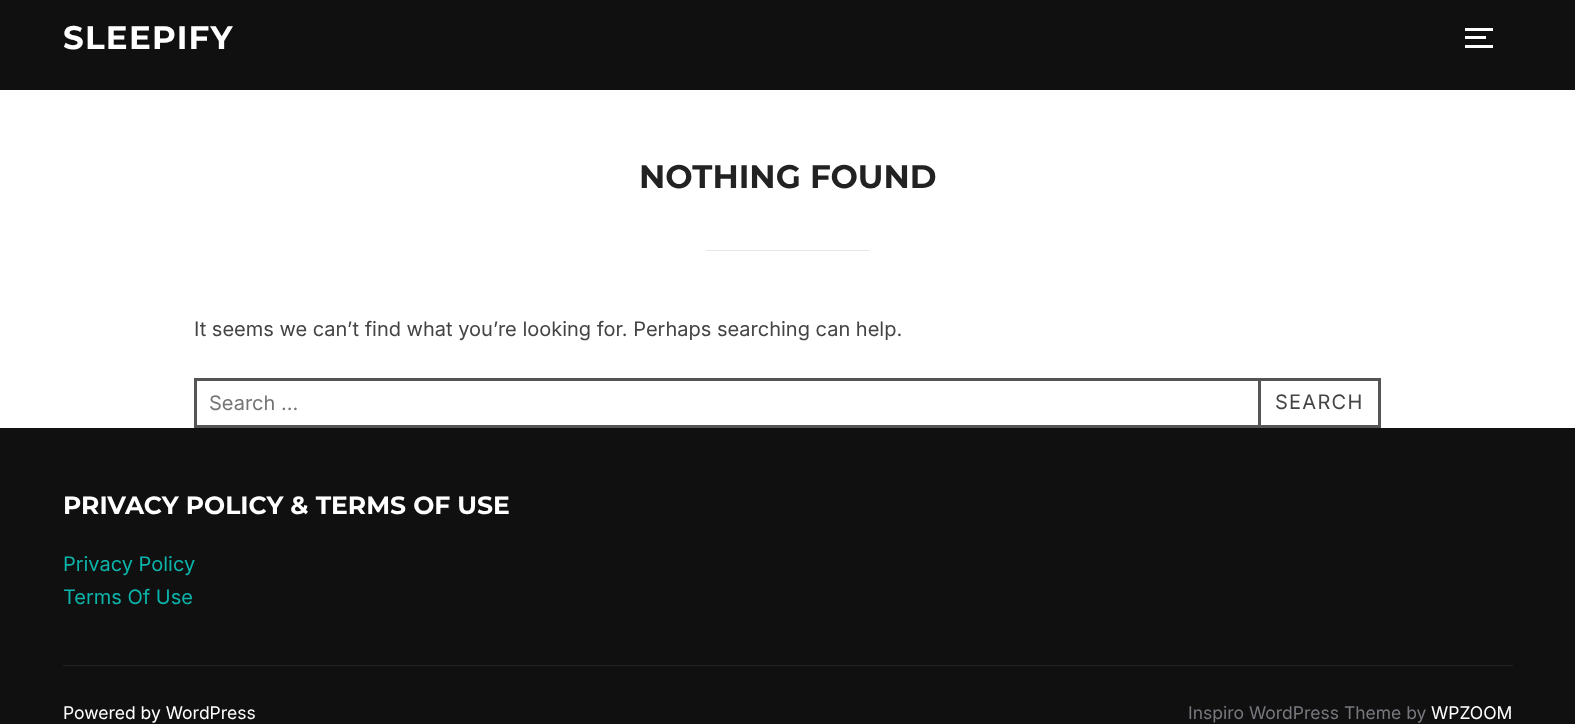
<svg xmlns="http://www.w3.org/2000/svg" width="1575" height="724">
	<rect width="100%" height="100%" fill="#FFFFFF" />
	<rect x="0" y="0" width="1575" height="90" fill="#101010" />
	<text x="63" y="49" font-family="Montserrat" font-size="32.5" font-weight="700" letter-spacing="1.25" fill="#FFFFFF">SLEEPIFY</text>
	<rect x="1465" y="28" width="28" height="3" fill="#FFFFFF" />
	<rect x="1465" y="36" width="21" height="3" fill="#FFFFFF" />
	<rect x="1465" y="45" width="28" height="3" fill="#FFFFFF" />
	<text x="639" y="188" font-family="Montserrat" font-size="32.5" font-weight="700" fill="#222222">NOTHING FOUND</text>
	<rect x="706" y="250" width="163" height="1" fill="#E6E6E6" />
	<text x="194" y="336" font-family="Inter" font-size="20" fill="#444444">It seems we can’t find what you’re looking for. Perhaps searching can help.</text>
	<rect x="195.5" y="379.5" width="1184" height="47" fill="none" stroke="#565555" stroke-width="3" />
	<text x="209" y="410" font-family="Inter" font-size="20" fill="#757575">Search …</text>
	<rect x="1259.5" y="379.5" width="120" height="47" fill="none" stroke="#565555" stroke-width="3" />
	<text x="1275" y="409" font-family="Inter" font-size="20" letter-spacing="1.25" fill="#444444">SEARCH</text>
	<rect x="0" y="428" width="1575" height="296" fill="#101010" />
	<text x="63" y="514" font-family="Montserrat" font-size="25" font-weight="700" fill="#FFFFFF">PRIVACY POLICY &amp; TERMS OF USE</text>
	<g font-family="Inter" font-size="20" fill="#0BB4AA">
		<text x="63" y="571">Privacy Policy</text>
		<text x="63" y="604">Terms Of Use</text>
	</g>
	<rect x="63" y="665" width="1450" height="1" fill="#232323" />
	<text x="63" y="719" font-family="Inter" font-size="17.5" fill="#FFFFFF">Powered by WordPress</text>
	<text x="1188" y="719" font-family="Inter" font-size="17.5" fill="#78787F">Inspiro WordPress Theme by</text>
	<text x="1431" y="719" font-family="Inter" font-size="17.5" fill="#FFFFFF">WPZOOM</text>
</svg>
